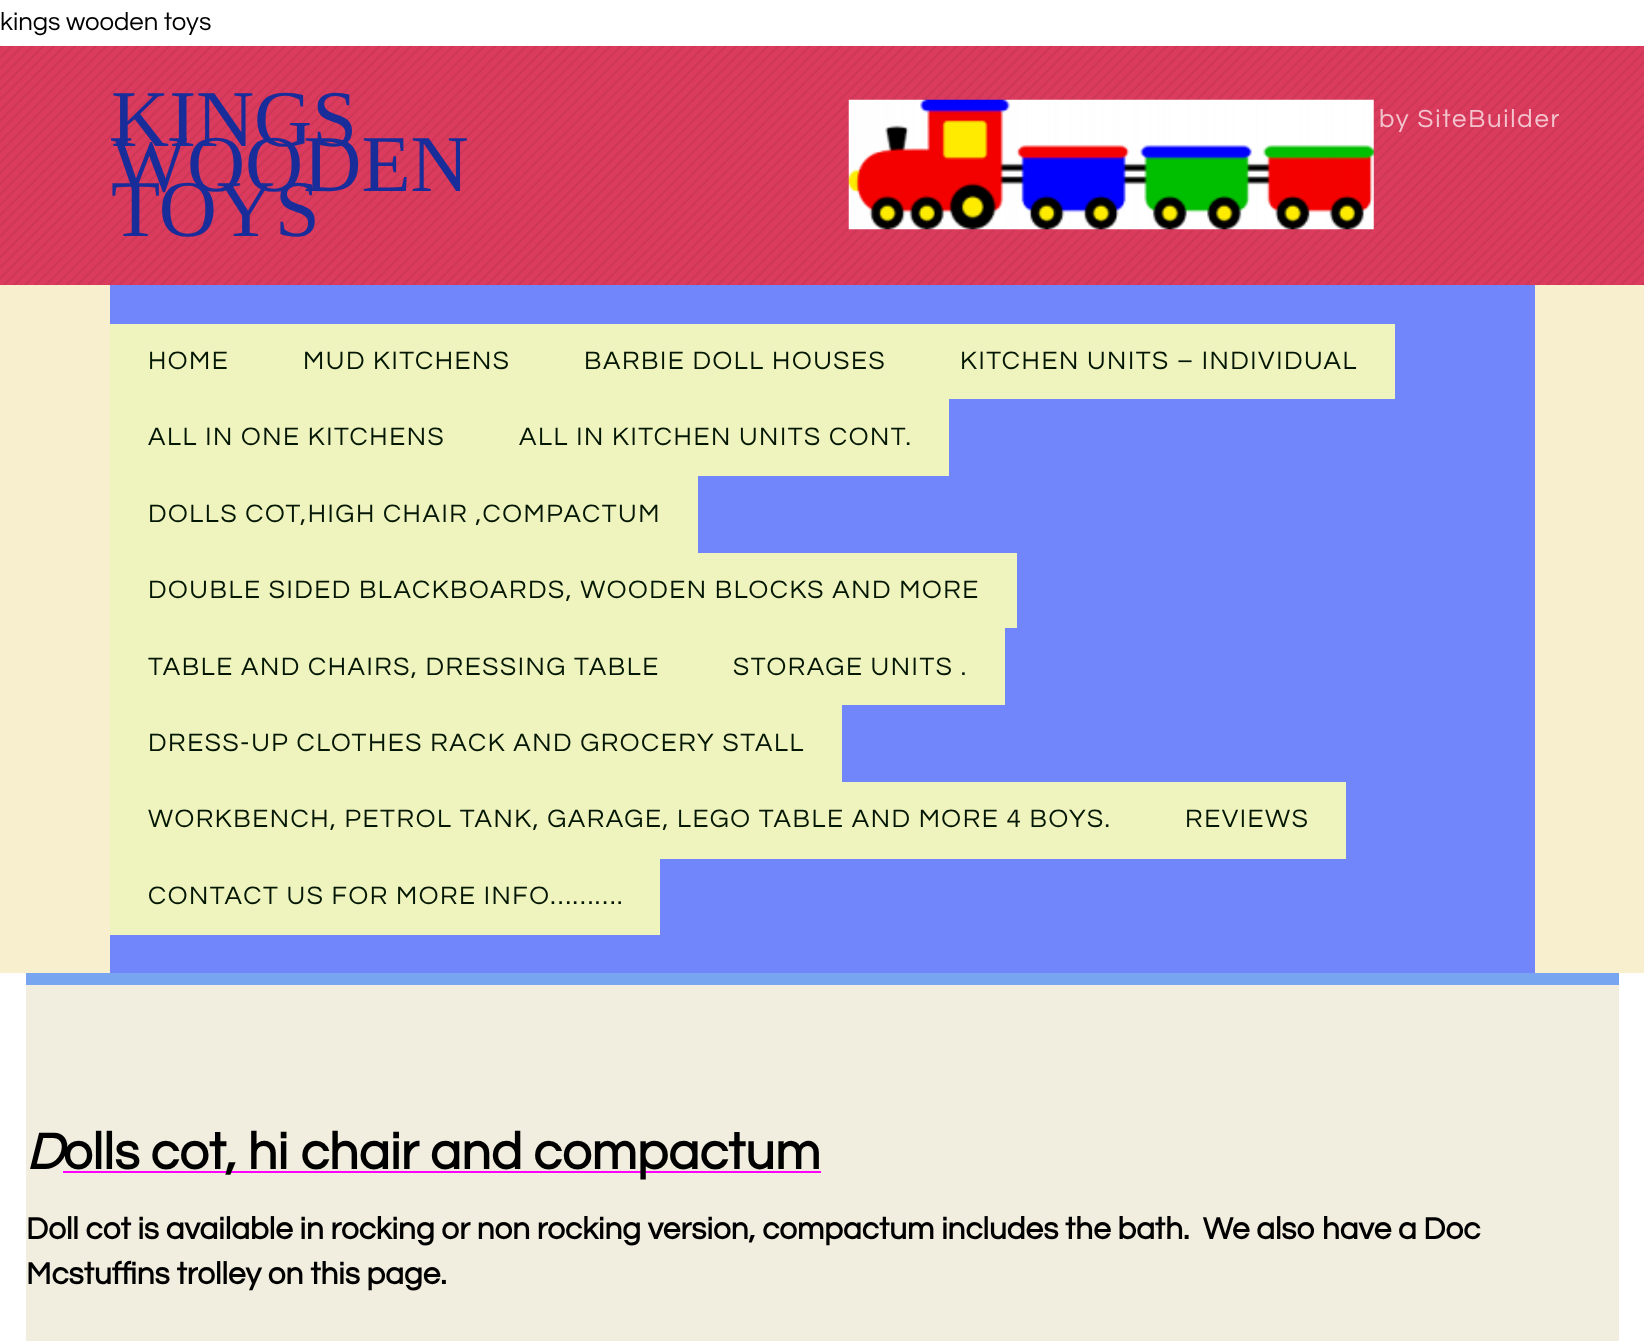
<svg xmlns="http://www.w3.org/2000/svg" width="1644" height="1341">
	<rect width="100%" height="100%" fill="#FFFFFF" />
	<text x="0" y="30" font-family="Questrial" font-size="25.75" fill="#000000">kings wooden toys</text>
	<rect x="0" y="46" width="1644" height="239" fill="#DB3B5D" />
	<image x="0" y="45" width="1644" height="240" href="assets/img1.png" />
	<g font-family="Liberation Serif" font-size="80.5" fill="#182D9A">
		<text x="111" y="146">KINGS</text>
		<text x="111" y="191">WOODEN</text>
		<text x="111" y="236">TOYS</text>
	</g>
	<image x="848" y="99" width="526" height="131" href="assets/img2.png" />
	<text x="1379" y="127" font-family="Questrial" font-size="25.75" letter-spacing="1.75" fill="#F3C4CE">by SiteBuilder</text>
	<rect x="0" y="285" width="1644" height="688" fill="#F8EFCF" />
	<rect x="110" y="285" width="1425" height="688" fill="#7086FA" />
	<rect x="110" y="324" width="1285" height="75" fill="#EFF3BD" />
	<g font-family="Questrial" font-size="26.25" letter-spacing="1.57" fill="#031704">
		<text x="148" y="369">HOME</text>
		<text x="303" y="369">MUD KITCHENS</text>
		<text x="584" y="369">BARBIE DOLL HOUSES</text>
		<text x="960" y="369">KITCHEN UNITS – INDIVIDUAL</text>
	</g>
	<rect x="110" y="399" width="839" height="77" fill="#EFF3BD" />
	<g font-family="Questrial" font-size="26.25" letter-spacing="1.57" fill="#031704">
		<text x="148" y="445">ALL IN ONE KITCHENS</text>
		<text x="519" y="445">ALL IN KITCHEN UNITS CONT.</text>
	</g>
	<rect x="110" y="476" width="588" height="77" fill="#EFF3BD" />
	<text x="148" y="522" font-family="Questrial" font-size="26.25" letter-spacing="1.57" fill="#031704">DOLLS COT,HIGH CHAIR ,COMPACTUM</text>
	<rect x="110" y="553" width="907" height="75" fill="#EFF3BD" />
	<text x="148" y="598" font-family="Questrial" font-size="26.25" letter-spacing="1.57" fill="#031704">DOUBLE SIDED BLACKBOARDS, WOODEN BLOCKS AND MORE</text>
	<rect x="110" y="628" width="895" height="77" fill="#EFF3BD" />
	<g font-family="Questrial" font-size="26.25" letter-spacing="1.57" fill="#031704">
		<text x="148" y="675">TABLE AND CHAIRS, DRESSING TABLE</text>
		<text x="733" y="675">STORAGE UNITS .</text>
	</g>
	<rect x="110" y="705" width="732" height="77" fill="#EFF3BD" />
	<text x="148" y="751" font-family="Questrial" font-size="26.25" letter-spacing="1.57" fill="#031704">DRESS-UP CLOTHES RACK AND GROCERY STALL</text>
	<rect x="110" y="782" width="1236" height="77" fill="#EFF3BD" />
	<g font-family="Questrial" font-size="26.25" letter-spacing="1.57" fill="#031704">
		<text x="148" y="827">WORKBENCH, PETROL TANK, GARAGE, LEGO TABLE AND MORE 4 BOYS.</text>
		<text x="1185" y="827">REVIEWS</text>
	</g>
	<rect x="110" y="859" width="550" height="76" fill="#EFF3BD" />
	<text x="148" y="904" font-family="Questrial" font-size="26.25" letter-spacing="1.57" fill="#031704">CONTACT US FOR MORE INFO……….</text>
	<rect x="26" y="985" width="1593" height="356" fill="#F1EEDF" />
	<rect x="26" y="973" width="1593" height="12" fill="#78A5EF" />
	<text x="26" y="1169" font-family="Questrial" font-size="52.5" font-weight="700" font-style="italic" fill="#000000">D</text>
	<rect x="63" y="1171" width="758" height="2" fill="#FF00FF" />
	<text x="63" y="1169" font-family="Questrial" font-size="52.5" font-weight="700" fill="#000000">olls cot, hi chair and compactum</text>
	<g font-family="Questrial" font-size="31.5" font-weight="700" fill="#000000">
		<text x="26" y="1239" xml:space="preserve">Doll cot is available in rocking or non rocking version, compactum includes the bath.  We also have a Doc</text>
		<text x="26" y="1284">Mcstuffins trolley on this page.</text>
	</g>
</svg>
